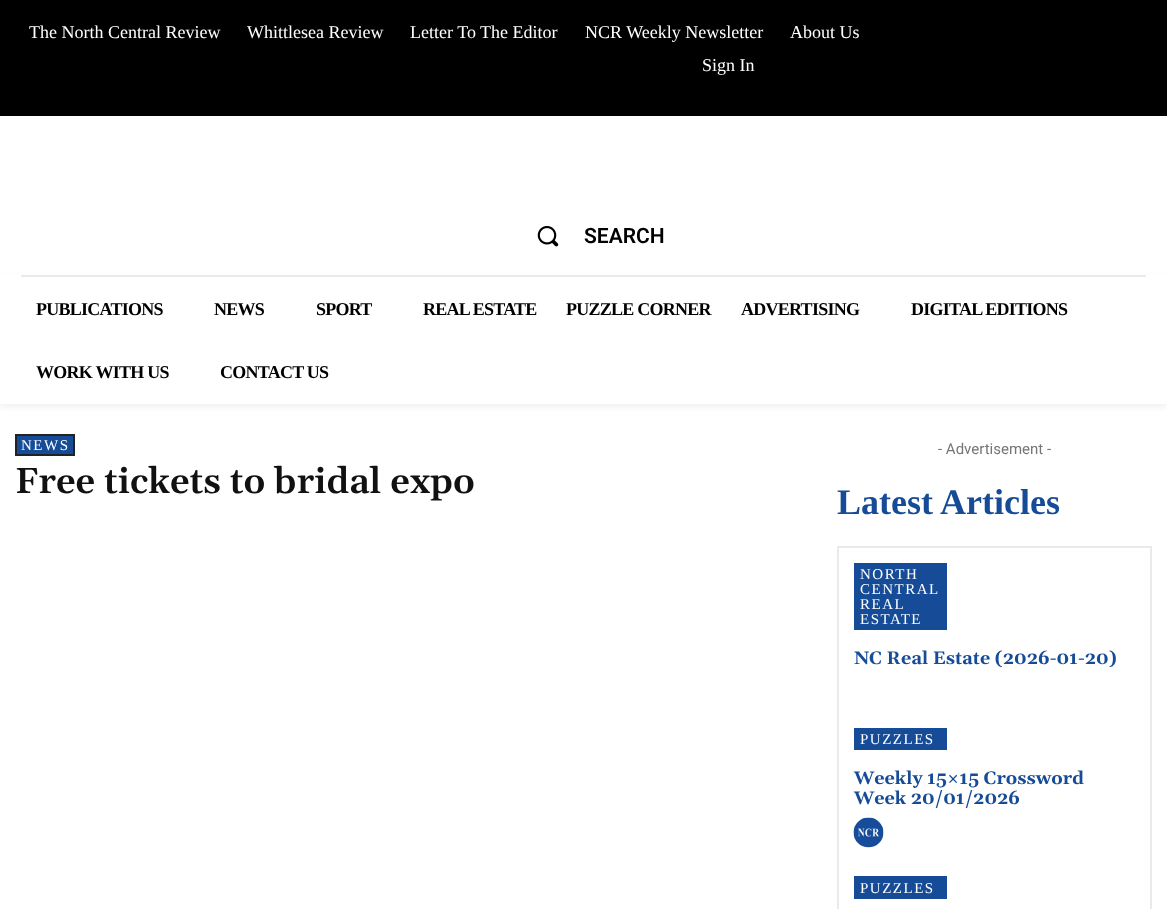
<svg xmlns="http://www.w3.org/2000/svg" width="1167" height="909">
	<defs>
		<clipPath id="clip1"><path d="M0 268H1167V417H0ZM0 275H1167V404H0Z" clip-rule="evenodd" /></clipPath>
	</defs>
	<rect width="100%" height="100%" fill="#FFFFFF" />
	<rect x="0" y="0" width="1167" height="116" fill="#000000" />
	<g font-family="Liberation Serif" font-size="18" fill="#FFFFFF">
		<text x="29" y="38">The North Central Review</text>
		<text x="247" y="38">Whittlesea Review</text>
		<text x="410" y="38">Letter To The Editor</text>
		<text x="585" y="38">NCR Weekly Newsletter</text>
		<text x="790" y="38">About Us</text>
		<text x="702" y="71">Sign In</text>
	</g>
	<image x="537" y="226" width="22" height="21" href="assets/img1.png" />
	<text x="584" y="243" font-family="Roboto" font-size="21" font-weight="600" fill="#000000">SEARCH</text>
	<rect x="21" y="275" width="1125" height="2" fill="#EAEAEA" />
	<g clip-path="url(#clip1)">
		<rect x="0" y="278" width="1167" height="129" fill="#000000" fill-opacity="0.06" filter="blur(3px)" />
	</g>
	<g font-family="Liberation Serif" font-size="18" font-weight="700" letter-spacing="-0.75" fill="#000000">
		<text x="36" y="315">PUBLICATIONS</text>
		<text x="214" y="315">NEWS</text>
		<text x="316" y="315">SPORT</text>
		<text x="423" y="315">REAL ESTATE</text>
		<text x="566" y="315">PUZZLE CORNER</text>
		<text x="741" y="315">ADVERTISING</text>
		<text x="911" y="315">DIGITAL EDITIONS</text>
		<text x="36" y="378">WORK WITH US</text>
		<text x="220" y="378">CONTACT US</text>
	</g>
	<rect x="16" y="435" width="58" height="20" fill="#164C97" stroke="#222222" stroke-width="2" />
	<text x="21" y="450" font-family="Liberation Serif" font-size="15" letter-spacing="1.5" fill="#FFFFFF">NEWS</text>
	<text x="15" y="493" font-family="Gelasio" font-size="36" font-weight="600" fill="#111111">Free tickets to bridal expo</text>
	<text x="938" y="454" font-family="Roboto" font-size="15" fill="#767676">- Advertisement -</text>
	<text x="837" y="514" font-family="Liberation Serif" font-size="36" font-weight="700" fill="#164C97">Latest Articles</text>
	<rect x="838" y="547" width="313" height="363" fill="none" stroke="#EAEAEA" stroke-width="2" />
	<rect x="854" y="563" width="93" height="67" fill="#164C97" />
	<g font-family="Liberation Serif" font-size="15" letter-spacing="1.5" fill="#FFFFFF">
		<text x="860" y="579">NORTH</text>
		<text x="860" y="594">CENTRAL</text>
		<text x="860" y="609">REAL</text>
		<text x="860" y="624">ESTATE</text>
	</g>
	<text x="854" y="664" font-family="Gelasio" font-size="18" font-weight="700" fill="#164C97">NC Real Estate (2026-01-20)</text>
	<rect x="854" y="728" width="93" height="22" fill="#164C97" />
	<text x="860" y="744" font-family="Liberation Serif" font-size="15" letter-spacing="1.5" fill="#FFFFFF">PUZZLES</text>
	<g font-family="Gelasio" font-size="18" font-weight="700" fill="#164C97">
		<text x="854" y="784">Weekly 15×15 Crossword</text>
		<text x="854" y="804">Week 20/01/2026</text>
	</g>
	<image x="853" y="817" width="31" height="31" href="assets/img2.png" />
	<rect x="854" y="876" width="93" height="23" fill="#164C97" />
	<text x="860" y="893" font-family="Liberation Serif" font-size="15" letter-spacing="1.5" fill="#FFFFFF">PUZZLES</text>
</svg>
